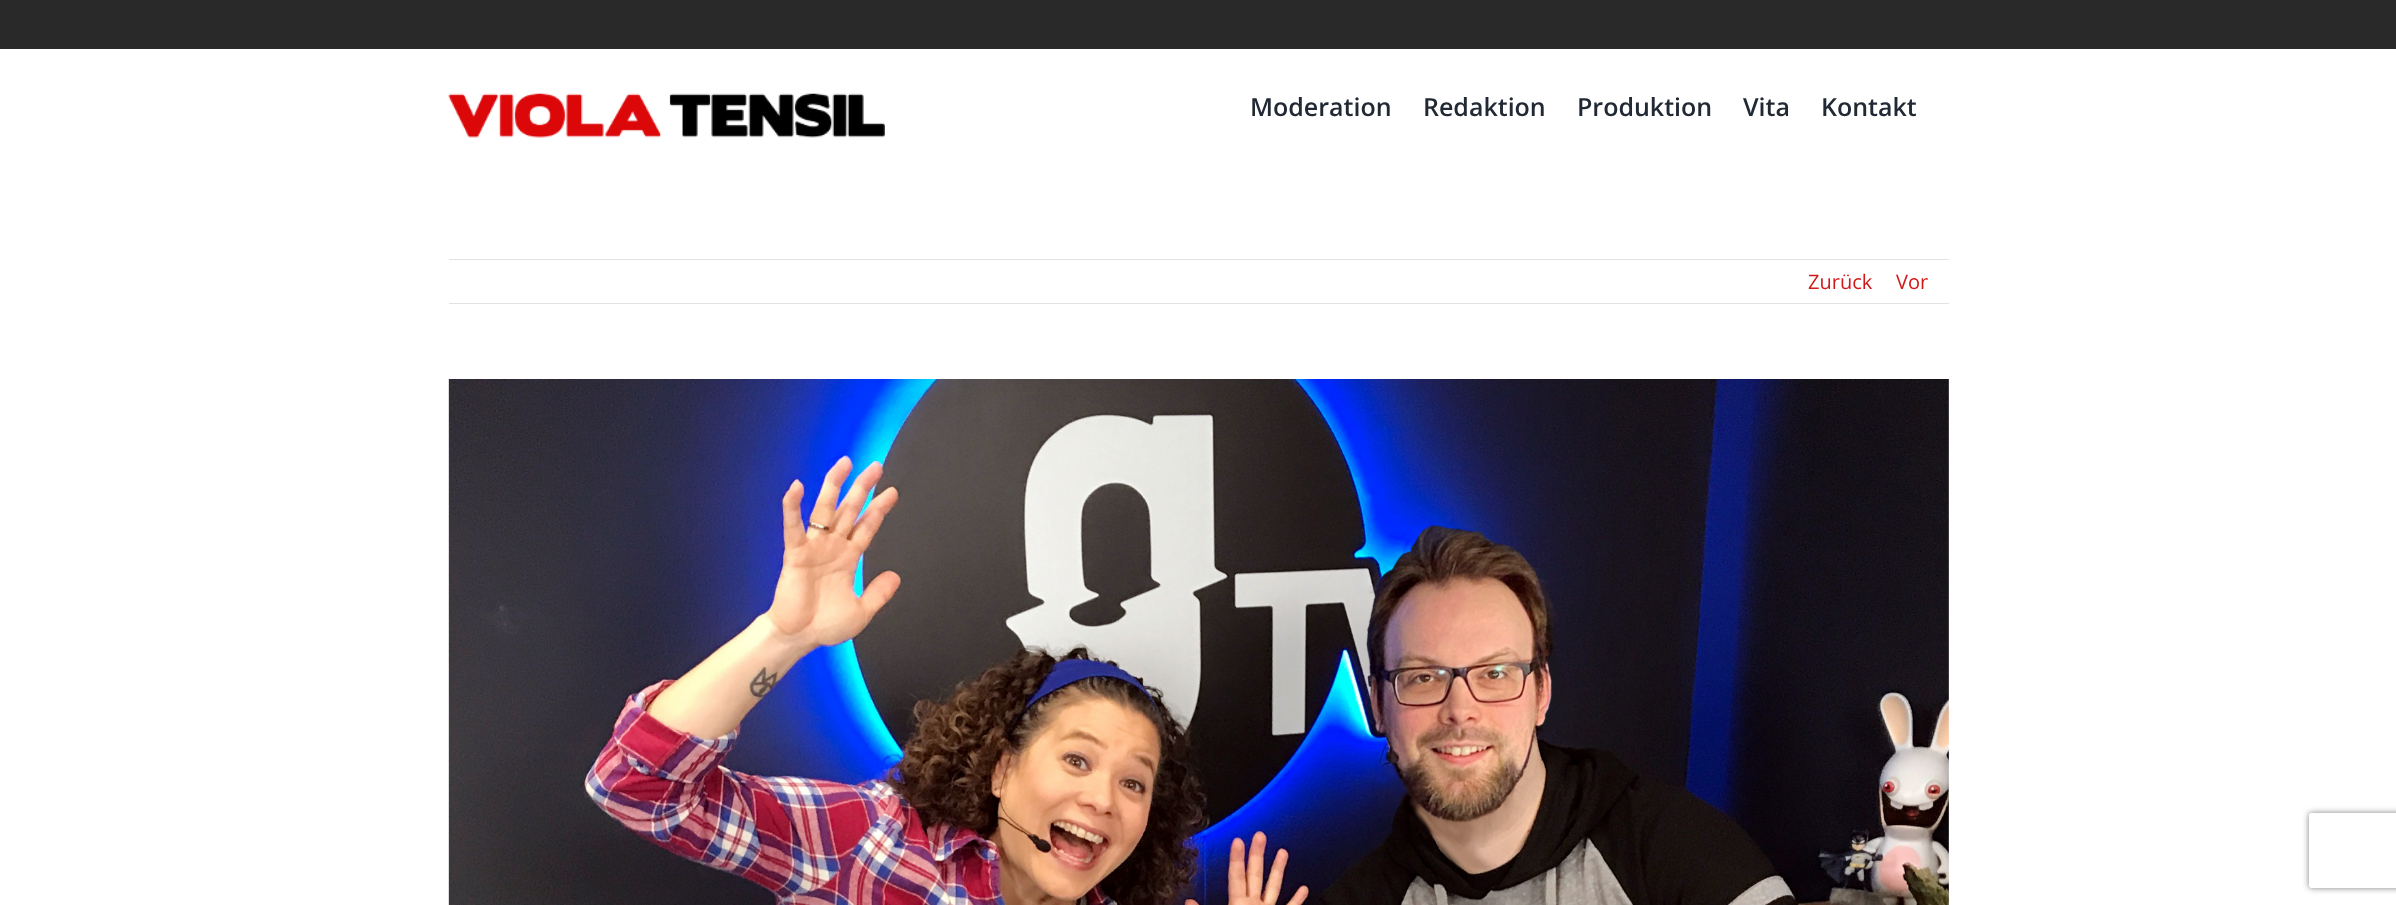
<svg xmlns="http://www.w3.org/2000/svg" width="2396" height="905">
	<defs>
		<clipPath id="clip1"><path d="M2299 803H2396V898H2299ZM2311.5 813H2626.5C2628 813 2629 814 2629 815.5V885.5C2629 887 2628 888 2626.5 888H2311.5C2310 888 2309 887 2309 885.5V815.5C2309 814 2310 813 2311.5 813Z" clip-rule="evenodd" /></clipPath>
	</defs>
	<rect width="100%" height="100%" fill="#FFFFFF" />
	<rect x="0" y="0" width="2396" height="49" fill="#292929" />
	<image x="448" y="93" width="437" height="45" href="assets/img1.png" />
	<g font-family="Open Sans" font-size="25" font-weight="600" fill="#212934">
		<text x="1250" y="116">Moderation</text>
		<text x="1423" y="116">Redaktion</text>
		<text x="1577" y="116">Produktion</text>
		<text x="1743" y="116">Vita</text>
		<text x="1821" y="116">Kontakt</text>
	</g>
	<rect x="449" y="259" width="1500" height="1" fill="#E2E2E2" />
	<rect x="449" y="303" width="1500" height="1" fill="#E2E2E2" />
	<g font-family="Open Sans" font-size="20" fill="#D21919">
		<text x="1808" y="289">Zurück</text>
		<text x="1896" y="289">Vor</text>
	</g>
	<image x="448" y="379" width="1501" height="526" href="assets/img2.png" />
	<g clip-path="url(#clip1)">
		<rect x="2309" y="813" width="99" height="75" rx="2.5" fill="#808080" filter="blur(3px)" />
	</g>
</svg>
